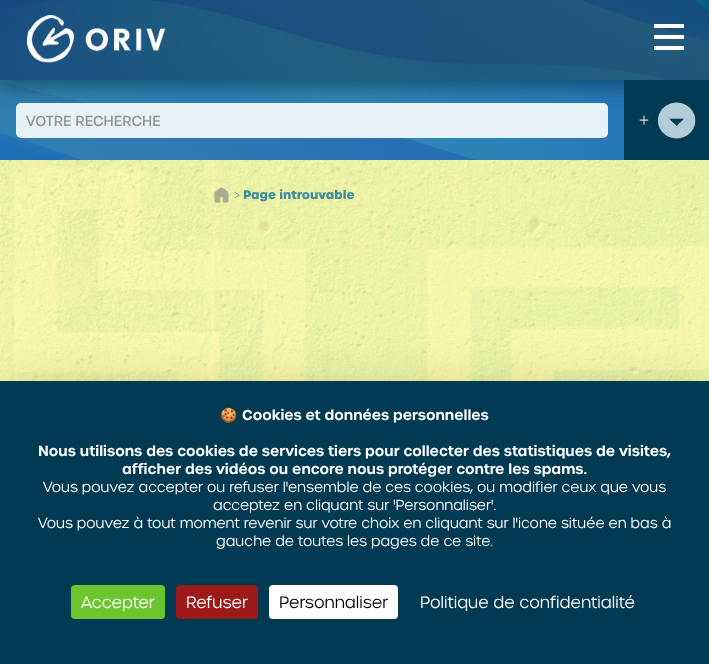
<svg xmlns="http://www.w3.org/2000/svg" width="709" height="664">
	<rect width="100%" height="100%" fill="#FFFFFF" />
	<image x="0" y="80" width="624" height="80" href="assets/img3.png" />
	<rect x="0" y="6" width="709" height="80" fill="#002730" fill-opacity="0.55" filter="blur(9.5px)" />
	<image x="0" y="0" width="709" height="80" href="assets/img1.png" />
	<image x="26" y="15" width="140" height="48" href="assets/img2.png" />
	<rect x="654" y="24" width="30" height="4" fill="#FFFFFF" />
	<rect x="654" y="46" width="30" height="4" fill="#FFFFFF" />
	<rect x="654" y="35" width="30" height="4" fill="#FFFFFF" />
	<rect x="16" y="103" width="592" height="35" rx="5" fill="#E7F2F6" />
	<text x="26" y="126" font-family="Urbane" font-size="14" font-weight="500" fill="#929292">VOTRE RECHERCHE</text>
	<rect x="624" y="80" width="85" height="80" fill="#003A53" />
	<text x="639" y="126" font-family="Urbane" font-size="16" font-weight="300" fill="#D4D4D4">+</text>
	<image x="657" y="102" width="39" height="37" href="assets/img4.png" />
	<image x="0" y="160" width="709" height="221" href="assets/img5.png" />
	<image x="214" y="187" width="15" height="16" href="assets/img6.png" />
	<text x="234" y="199" font-family="Urbane" font-size="11" font-weight="200" fill="#3F8C9F">&gt;</text>
	<text x="243" y="199" font-family="Urbane" font-size="12" font-weight="700" fill="#3F8C9F">Page introuvable</text>
	<rect x="0" y="401" width="709" height="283" fill="#000000" fill-opacity="0.25" filter="blur(30px)" />
	<rect x="0" y="381" width="709" height="283" fill="#003A53" />
	<text x="220" y="420" font-family="Noto Color Emoji" font-size="14" fill="#FFFFFF">🍪</text>
	<g font-family="Urbane" font-size="14" font-weight="600" fill="#FFFFFF">
		<text x="242" y="420">Cookies et données personnelles</text>
		<text x="38" y="456">Nous utilisons des cookies de services tiers pour collecter des statistiques de visites,</text>
		<text x="122" y="474">afficher des vidéos ou encore nous protéger contre les spams.</text>
	</g>
	<g font-family="Urbane" font-size="14" font-weight="300" fill="#FFFFFF">
		<text x="43" y="492">Vous pouvez accepter ou refuser l'ensemble de ces cookies, ou modifier ceux que vous</text>
		<text x="213" y="510">acceptez en cliquant sur 'Personnaliser'.</text>
		<text x="38" y="528">Vous pouvez à tout moment revenir sur votre choix en cliquant sur l'icone située en bas à</text>
		<text x="216" y="546">gauche de toutes les pages de ce site.</text>
	</g>
	<rect x="71" y="585" width="94" height="34" rx="4" fill="#6BC62E" />
	<text x="81" y="608" font-family="Urbane" font-size="16" font-weight="300" fill="#FFFFFF">Accepter</text>
	<rect x="176" y="585" width="82" height="34" rx="4" fill="#9C1A1A" />
	<text x="186" y="608" font-family="Urbane" font-size="16" font-weight="300" fill="#FFFFFF">Refuser</text>
	<rect x="269" y="585" width="129" height="34" rx="4" fill="#FFFFFF" />
	<text x="279" y="608" font-family="Urbane" font-size="16" font-weight="300" fill="#000000">Personnaliser</text>
	<text x="420" y="608" font-family="Urbane" font-size="16" font-weight="300" fill="#FFFFFF">Politique de confidentialité</text>
</svg>
